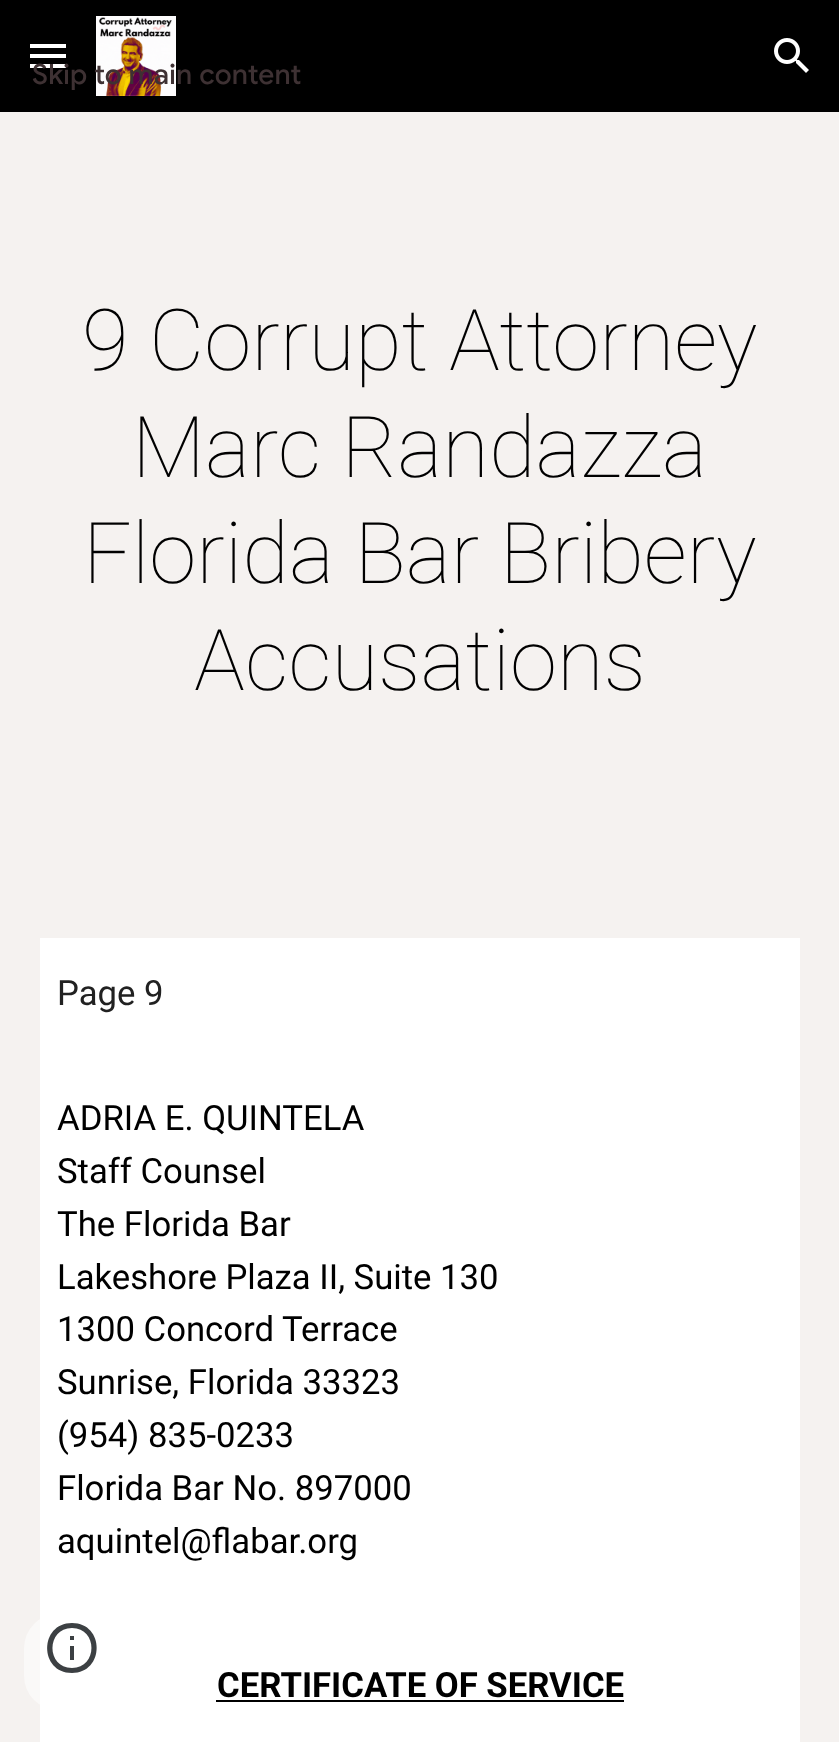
<svg xmlns="http://www.w3.org/2000/svg" width="839" height="1742">
	<rect width="100%" height="100%" fill="#F5F2F0" />
	<rect x="0" y="0" width="839" height="112" fill="#000000" />
	<image x="96" y="16" width="80" height="80" href="assets/img1.png" />
	<rect x="30" y="64" width="36" height="4" fill="#FFFFFF" />
	<text x="32" y="84" font-family="Google Sans" font-size="28" font-weight="500" letter-spacing="0.25" fill="#3E3133">Skip to main content</text>
	<image x="774" y="38" width="35" height="35" href="assets/img2.png" />
	<rect x="30" y="44" width="36" height="4" fill="#FFFFFF" />
	<rect x="30" y="54" width="36" height="4" fill="#FFFFFF" />
	<g font-family="Roboto" font-size="85.25" font-weight="100" fill="#000000">
		<text x="82" y="370">9 Corrupt Attorney</text>
		<text x="132" y="477">Marc Randazza</text>
		<text x="83" y="583">Florida Bar Bribery</text>
		<text x="194" y="690">Accusations</text>
	</g>
	<rect x="40" y="938" width="760" height="804" fill="#FFFFFF" />
	<text x="57" y="1005" font-family="Roboto" font-size="34.7" fill="#212121">Page 9</text>
	<g font-family="Roboto" font-size="34.7" fill="#000000">
		<text x="57" y="1130">ADRIA E. QUINTELA</text>
		<text x="57" y="1183">Staff Counsel</text>
		<text x="57" y="1236">The Florida Bar</text>
		<text x="57" y="1289">Lakeshore Plaza II, Suite 130</text>
		<text x="57" y="1341">1300 Concord Terrace</text>
		<text x="57" y="1394">Sunrise, Florida 33323</text>
		<text x="57" y="1447">(954) 835-0233</text>
		<text x="57" y="1500">Florida Bar No. 897000</text>
		<text x="57" y="1553">aquintel@flabar.org</text>
	</g>
	<text x="217" y="1697" font-family="Roboto" font-size="34.7" font-weight="700" fill="#000000">CERTIFICATE OF SERVICE</text>
	<rect x="216" y="1700" width="408" height="2" fill="#000000" />
	<rect x="24" y="1614" width="96" height="96" rx="34" fill="#FFFFFF" fill-opacity="0.5" />
	<path d="M70 1660H74V1646H70ZM72 1623C39 1623 39 1673 72 1673C105 1673 105 1623 72 1623ZM72 1668C46 1668 46 1628 72 1628C98 1628 98 1668 72 1668ZM70 1640H74V1636H70Z" fill="#3C4043" />
</svg>
